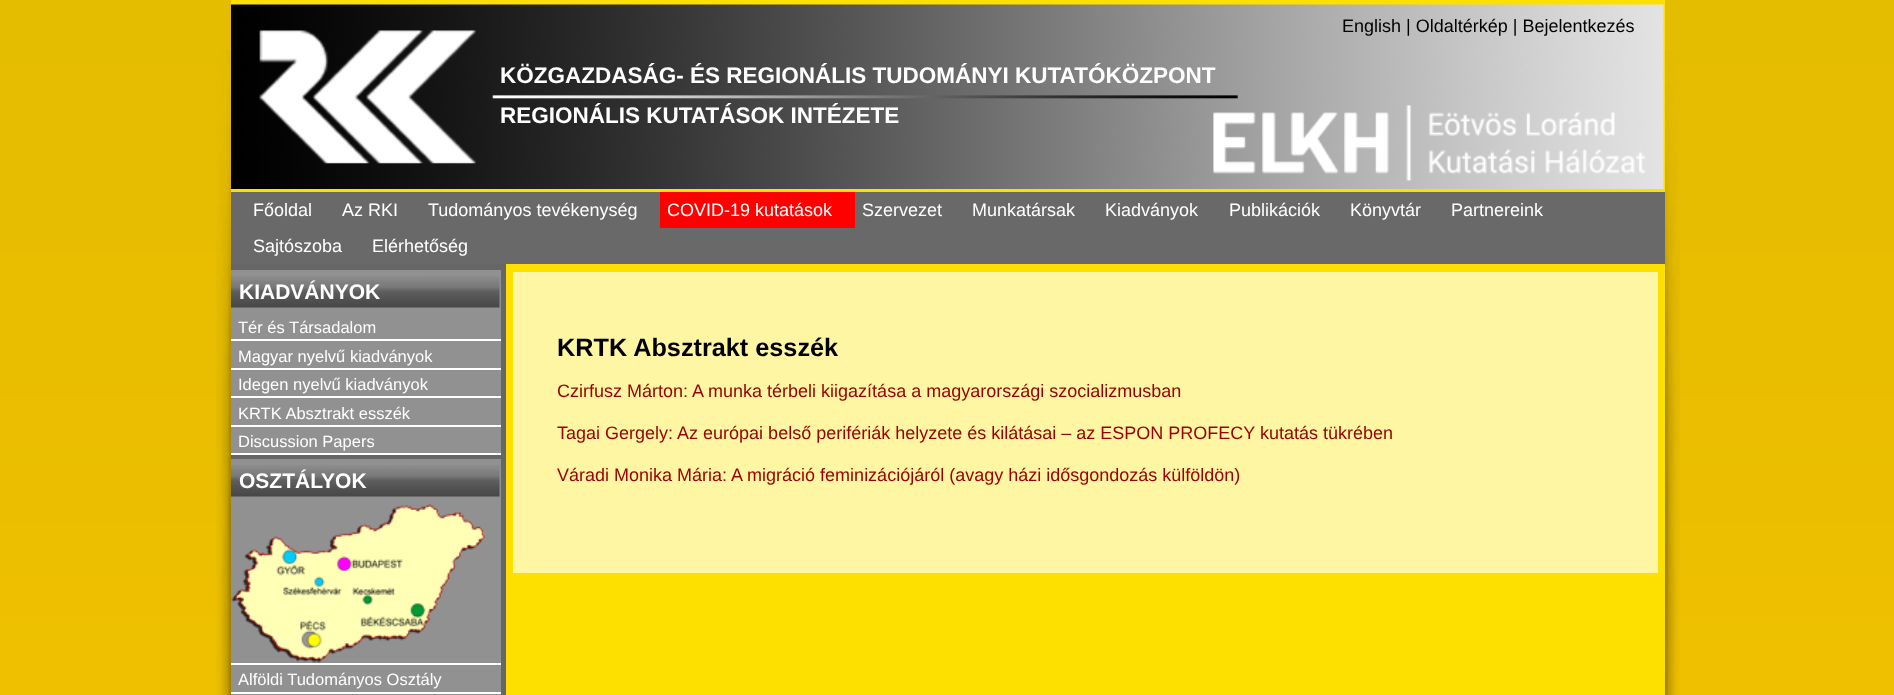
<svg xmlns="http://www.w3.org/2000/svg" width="1894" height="695">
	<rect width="100%" height="100%" fill="#FFFFFF" />
	<image x="0" y="0" width="1894" height="695" href="assets/img1.png" />
	<image x="216" y="50" width="15" height="645" href="assets/img2.png" />
	<rect x="231" y="0" width="1434" height="695" fill="#FDE000" />
	<image x="231" y="4" width="1433" height="185" href="assets/img3.png" />
	<text x="1342" y="32" font-family="Liberation Sans" font-size="18" fill="#000000">English | Oldaltérkép | Bejelentkezés</text>
	<g font-family="Liberation Sans" font-size="22.5" font-weight="700" fill="#FFFFFF">
		<text x="500" y="83">KÖZGAZDASÁG- ÉS REGIONÁLIS TUDOMÁNYI KUTATÓKÖZPONT</text>
		<text x="500" y="123">REGIONÁLIS KUTATÁSOK INTÉZETE</text>
	</g>
	<rect x="231" y="192" width="1434" height="72" fill="#696969" />
	<g font-family="Liberation Sans" font-size="18" fill="#FFFFFF">
		<text x="253" y="216">Főoldal</text>
		<text x="342" y="216">Az RKI</text>
		<text x="428" y="216">Tudományos tevékenység</text>
	</g>
	<rect x="660" y="192" width="195" height="36" fill="#FF0000" />
	<g font-family="Liberation Sans" font-size="18" fill="#FFFFFF">
		<text x="667" y="216">COVID-19 kutatások</text>
		<text x="862" y="216">Szervezet</text>
		<text x="972" y="216">Munkatársak</text>
		<text x="1105" y="216">Kiadványok</text>
		<text x="1229" y="216">Publikációk</text>
		<text x="1350" y="216">Könyvtár</text>
		<text x="1451" y="216">Partnereink</text>
		<text x="253" y="252">Sajtószoba</text>
		<text x="372" y="252">Elérhetőség</text>
	</g>
	<rect x="231" y="264" width="275" height="431" fill="#666666" />
	<rect x="231" y="270" width="270" height="183" fill="#919191" />
	<image x="231" y="276" width="269" height="32" href="assets/img4.png" />
	<text x="239" y="299" font-family="Liberation Sans" font-size="21" font-weight="700" fill="#FFFFFF">KIADVÁNYOK</text>
	<rect x="231" y="339" width="270" height="2" fill="#FFFFFF" />
	<text x="238" y="333" font-family="Liberation Sans" font-size="16.5" fill="#FFFFFF">Tér és Társadalom</text>
	<rect x="231" y="368" width="270" height="2" fill="#FFFFFF" />
	<text x="238" y="362" font-family="Liberation Sans" font-size="16.5" fill="#FFFFFF">Magyar nyelvű kiadványok</text>
	<rect x="231" y="396" width="270" height="2" fill="#FFFFFF" />
	<text x="238" y="390" font-family="Liberation Sans" font-size="16.5" fill="#FFFFFF">Idegen nyelvű kiadványok</text>
	<rect x="231" y="425" width="270" height="2" fill="#FFFFFF" />
	<text x="238" y="419" font-family="Liberation Sans" font-size="16.5" fill="#FFFFFF">KRTK Absztrakt esszék</text>
	<rect x="231" y="453" width="270" height="2" fill="#FFFFFF" />
	<text x="238" y="447" font-family="Liberation Sans" font-size="16.5" fill="#FFFFFF">Discussion Papers</text>
	<rect x="231" y="459" width="270" height="236" fill="#919191" />
	<image x="231" y="465" width="269" height="32" href="assets/img5.png" />
	<text x="239" y="488" font-family="Liberation Sans" font-size="21" font-weight="700" fill="#FFFFFF">OSZTÁLYOK</text>
	<rect x="231" y="663" width="270" height="2" fill="#FFFFFF" />
	<image x="231" y="504" width="254" height="159" href="assets/img6.png" />
	<rect x="231" y="692" width="270" height="2" fill="#FFFFFF" />
	<text x="238" y="685" font-family="Liberation Sans" font-size="16.5" fill="#FFFFFF">Alföldi Tudományos Osztály</text>
	<rect x="513" y="272" width="1145" height="301" fill="#FFF6A3" />
	<text x="557" y="356" font-family="Liberation Sans" font-size="25.25" font-weight="700" fill="#000000">KRTK Absztrakt esszék</text>
	<g font-family="Liberation Sans" font-size="18" fill="#990000">
		<text x="557" y="397">Czirfusz Márton: A munka térbeli kiigazítása a magyarországi szocializmusban</text>
		<text x="557" y="439">Tagai Gergely: Az európai belső perifériák helyzete és kilátásai – az ESPON PROFECY kutatás tükrében</text>
		<text x="557" y="481">Váradi Monika Mária: A migráció feminizációjáról (avagy házi idősgondozás külföldön)</text>
	</g>
	<image x="1665" y="50" width="15" height="645" href="assets/img7.png" />
</svg>
